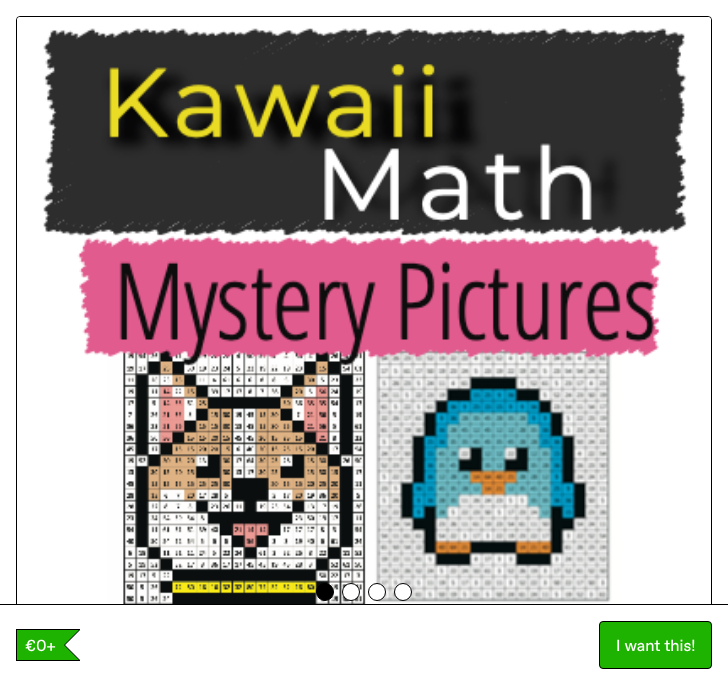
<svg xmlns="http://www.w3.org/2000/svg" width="728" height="685">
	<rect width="100%" height="100%" fill="#FFFFFF" />
	<rect x="16.5" y="16.5" width="695" height="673" rx="3.5" fill="none" stroke="#000000" />
	<image x="17" y="17" width="694" height="4" href="assets/img1.png" />
	<image x="17" y="17" width="694" height="587" href="assets/img2.png" />
	<circle cx="325" cy="592" r="8.5" fill="#000000" stroke="#000000" />
	<circle cx="351" cy="592" r="8.5" fill="#FFFFFF" stroke="#000000" />
	<circle cx="377" cy="592" r="8.5" fill="#FFFFFF" stroke="#000000" />
	<circle cx="403" cy="592" r="8.5" fill="#FFFFFF" stroke="#000000" />
	<rect x="0" y="604" width="728" height="1" fill="#000000" />
	<rect x="16" y="605" width="696" height="80" fill="#FFFFFF" />
	<rect x="16" y="629" width="64" height="1" fill="#000000" />
	<rect x="16" y="660" width="64" height="1" fill="#000000" />
	<rect x="16" y="629" width="1" height="32" fill="#000000" />
	<rect x="17" y="630" width="47" height="30" fill="#1EB300" />
	<path d="M64 630H80L65 645ZM80 660H64L65 645Z" fill="#000000" />
	<rect x="64" y="644" width="1" height="2" fill="#000000" />
	<path d="M63 630H79L64 645ZM79 660H63L64 645Z" fill="#1EB300" />
	<text x="25" y="651" font-family="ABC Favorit" font-size="16" fill="#FFFFFF">€0+</text>
	<rect x="599.5" y="621.5" width="112" height="47" rx="3.5" fill="#1EB300" stroke="#000000" />
	<text x="616" y="651" font-family="ABC Favorit" font-size="16" fill="#FFFFFF">I want this!</text>
</svg>
